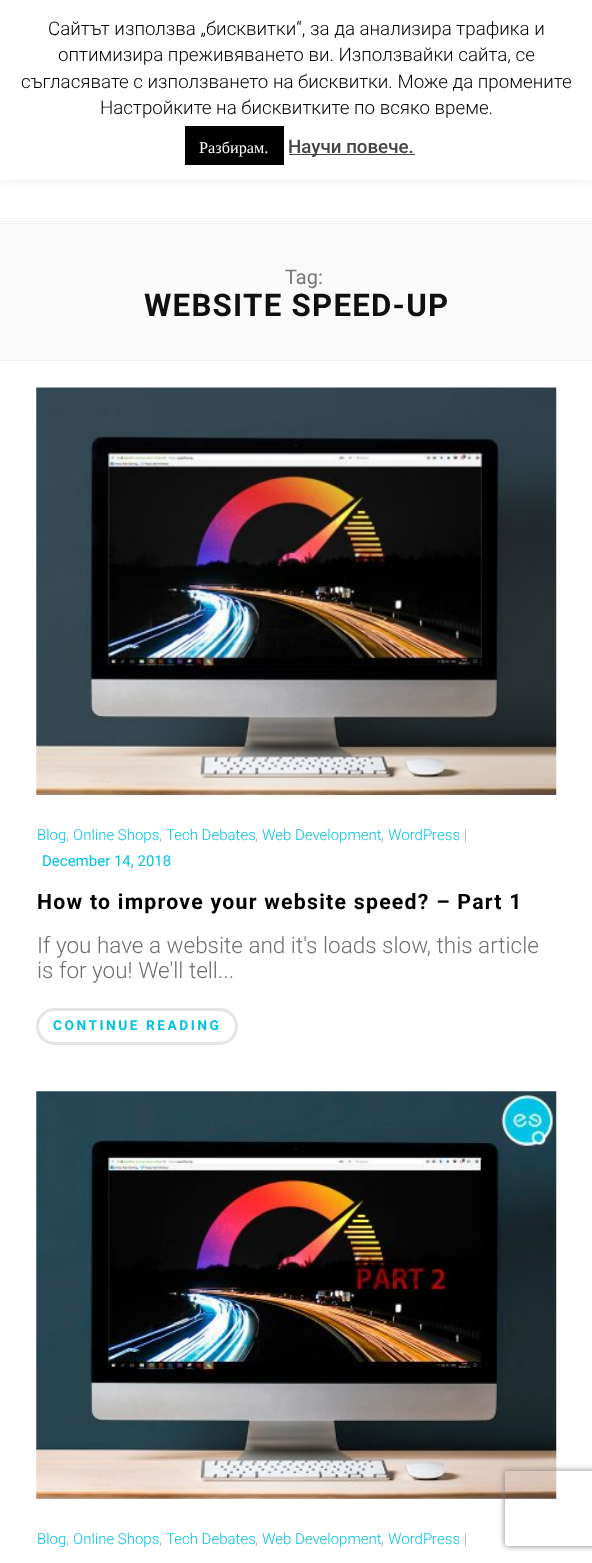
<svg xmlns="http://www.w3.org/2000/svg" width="592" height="1563">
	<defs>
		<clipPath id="clip1"><path d="M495 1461H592V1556H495ZM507.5 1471H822.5C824 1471 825 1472 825 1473.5V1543.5C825 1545 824 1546 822.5 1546H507.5C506 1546 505 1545 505 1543.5V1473.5C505 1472 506 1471 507.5 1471Z" clip-rule="evenodd" /></clipPath>
	</defs>
	<rect width="100%" height="100%" fill="#FFFFFF" />
	<rect x="0" y="-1" width="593" height="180" fill="#ACABAB" fill-opacity="0.3" filter="blur(6px)" />
	<rect x="0" y="0" width="592" height="180" fill="#FFFFFF" />
	<g font-family="Roboto" font-size="18.75" font-weight="300" fill="#000000">
		<text x="48" y="35">Сайтът използва „бисквитки“, за да анализира трафика и</text>
		<text x="58" y="61">оптимизира преживяването ви. Използвайки сайта, се</text>
		<text x="21" y="88">съгласявате с използването на бисквитки. Може да промените</text>
		<text x="100" y="114">Настройките на бисквитките по всяко време.</text>
	</g>
	<rect x="185" y="126" width="99" height="39" fill="#000000" />
	<text x="199" y="153" font-family="Liberation Serif" font-size="16.25" fill="#FFFFFF">Разбирам.</text>
	<rect x="289" y="154" width="126" height="1" fill="#444444" />
	<text x="288" y="153" font-family="Roboto" font-size="18.75" font-weight="500" fill="#444444">Научи повече.</text>
	<rect x="0" y="221" width="592" height="1" fill="#F1F1F1" />
	<rect x="0" y="224" width="592" height="136" fill="#FAFAFA" />
	<rect x="0" y="223" width="592" height="1" fill="#EEEEEE" />
	<rect x="0" y="360" width="592" height="1" fill="#F1F1F1" />
	<text x="285" y="284" font-family="Roboto" font-size="20" fill="#777777">Tag:</text>
	<text x="144" y="316" font-family="Roboto" font-size="31.25" font-weight="700" letter-spacing="1.25" fill="#101010">WEBSITE SPEED-UP</text>
	<image x="36" y="387" width="521" height="408" href="assets/img1.png" />
	<text x="37" y="840" font-family="Roboto" font-size="15" font-weight="300" fill="#00C2E5">Blog</text>
	<text x="66" y="840" font-family="Roboto" font-size="15" font-weight="300" fill="#A1A5AD">,</text>
	<text x="73" y="840" font-family="Roboto" font-size="15" font-weight="300" fill="#00C2E5">Online Shops</text>
	<text x="159" y="840" font-family="Roboto" font-size="15" font-weight="300" fill="#A1A5AD">,</text>
	<text x="166" y="840" font-family="Roboto" font-size="15" font-weight="300" fill="#00C2E5">Tech Debates</text>
	<text x="255" y="840" font-family="Roboto" font-size="15" font-weight="300" fill="#A1A5AD">,</text>
	<text x="262" y="840" font-family="Roboto" font-size="15" font-weight="300" fill="#00C2E5">Web Development</text>
	<text x="381" y="840" font-family="Roboto" font-size="15" font-weight="300" fill="#A1A5AD">,</text>
	<text x="388" y="840" font-family="Roboto" font-size="15" font-weight="300" fill="#00C2E5">WordPress</text>
	<text x="464" y="840" font-family="Roboto" font-size="15" font-weight="300" fill="#A1A5AD">|</text>
	<text x="42" y="866" font-family="Roboto" font-size="15" fill="#00C2E5">December 14, 2018</text>
	<text x="37" y="909" font-family="Roboto" font-size="21.25" font-weight="700" letter-spacing="1.25" fill="#000000">How to improve your website speed? – Part 1</text>
	<g font-family="Roboto" font-size="22.5" font-weight="300" fill="#6F6F6F">
		<text x="37" y="953">If you have a website and it's loads slow, this article</text>
		<text x="37" y="978">is for you! We'll tell...</text>
	</g>
	<rect x="37.5" y="1009.5" width="199" height="34" rx="17" fill="none" stroke="#E5E5E5" stroke-width="3" />
	<text x="53" y="1030" font-family="Roboto" font-size="13.75" font-weight="700" letter-spacing="2.5" fill="#00C2E5">CONTINUE READING</text>
	<image x="36" y="1091" width="521" height="408" href="assets/img2.png" />
	<text x="37" y="1544" font-family="Roboto" font-size="15" font-weight="300" fill="#00C2E5">Blog</text>
	<text x="66" y="1544" font-family="Roboto" font-size="15" font-weight="300" fill="#A1A5AD">,</text>
	<text x="73" y="1544" font-family="Roboto" font-size="15" font-weight="300" fill="#00C2E5">Online Shops</text>
	<text x="159" y="1544" font-family="Roboto" font-size="15" font-weight="300" fill="#A1A5AD">,</text>
	<text x="166" y="1544" font-family="Roboto" font-size="15" font-weight="300" fill="#00C2E5">Tech Debates</text>
	<text x="255" y="1544" font-family="Roboto" font-size="15" font-weight="300" fill="#A1A5AD">,</text>
	<text x="262" y="1544" font-family="Roboto" font-size="15" font-weight="300" fill="#00C2E5">Web Development</text>
	<text x="381" y="1544" font-family="Roboto" font-size="15" font-weight="300" fill="#A1A5AD">,</text>
	<text x="388" y="1544" font-family="Roboto" font-size="15" font-weight="300" fill="#00C2E5">WordPress</text>
	<text x="464" y="1544" font-family="Roboto" font-size="15" font-weight="300" fill="#A1A5AD">|</text>
	<g clip-path="url(#clip1)">
		<rect x="505" y="1471" width="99" height="75" rx="2.5" fill="#808080" filter="blur(3px)" />
	</g>
</svg>
